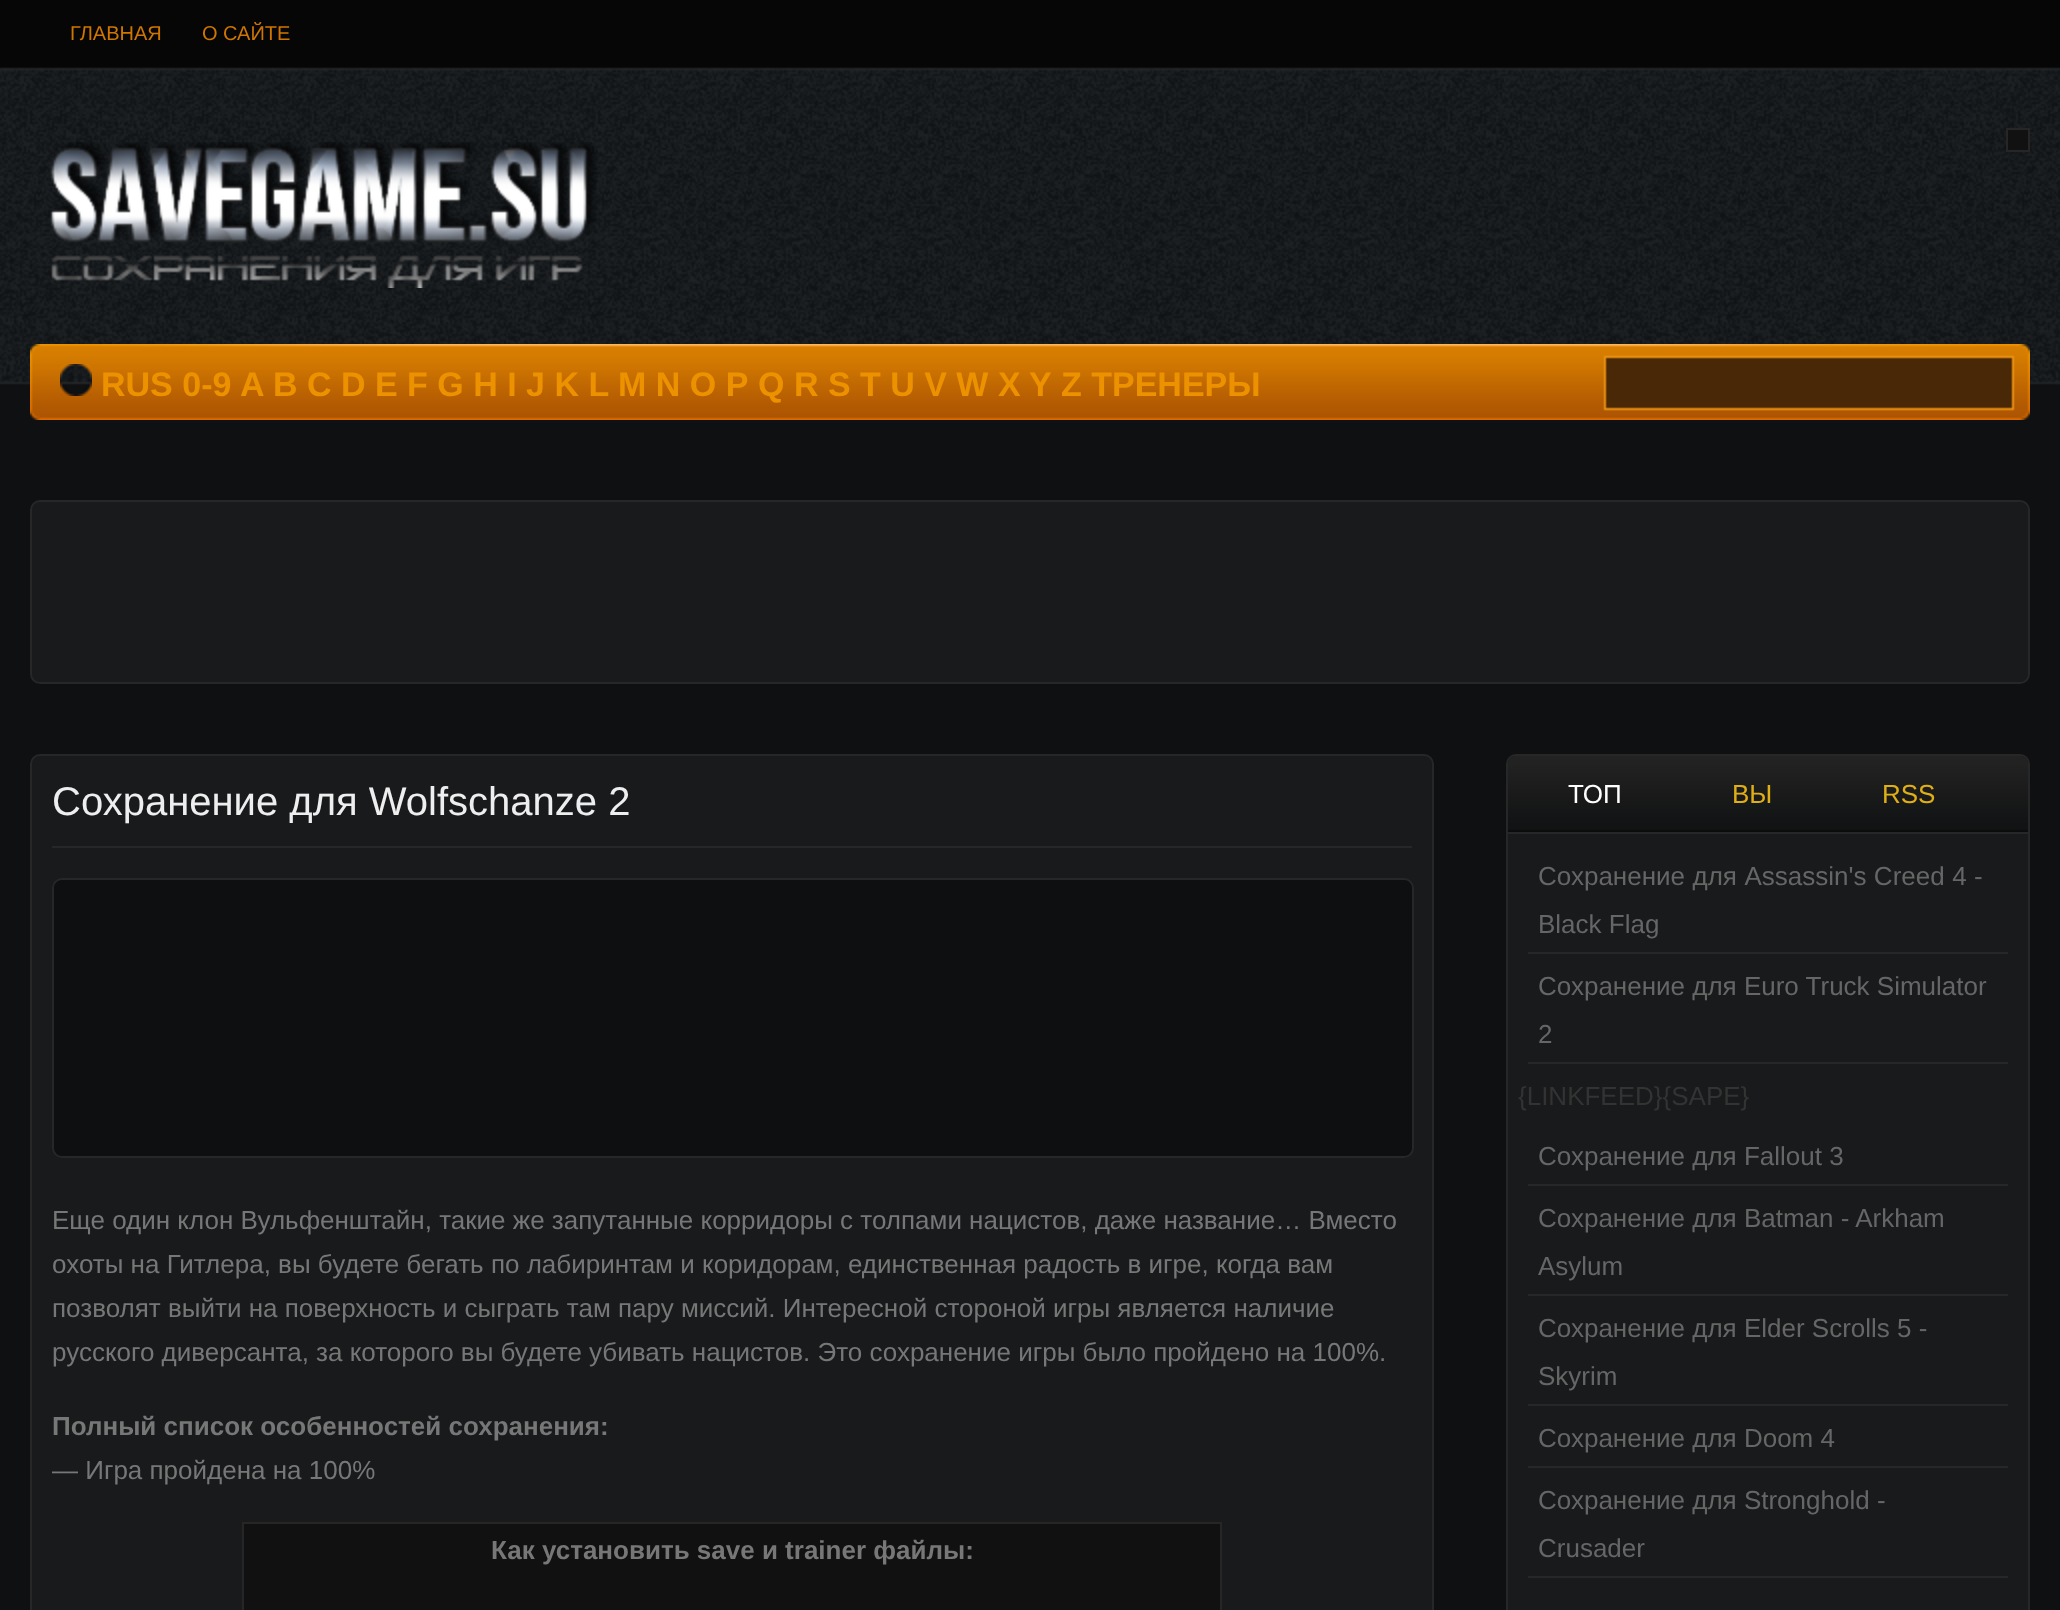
<svg xmlns="http://www.w3.org/2000/svg" width="2060" height="1610">
	<rect width="100%" height="100%" fill="#0F1011" />
	<image x="0" y="0" width="2060" height="385" href="assets/img1.png" />
	<g font-family="Liberation Sans" font-size="20" fill="#CF7601">
		<text x="70" y="40">ГЛАВНАЯ</text>
		<text x="202" y="40">О САЙТЕ</text>
	</g>
	<image x="50" y="142" width="547" height="146" href="assets/img2.png" />
	<rect x="2007" y="129" width="22" height="22" fill="#111111" stroke="#262626" stroke-width="2" />
	<image x="30" y="344" width="2000" height="76" href="assets/img3.png" />
	<image x="60" y="364" width="32" height="32" href="assets/img4.png" />
	<g font-family="Liberation Sans" font-size="34" font-weight="700" fill="#EC9201">
		<text x="101" y="396">RUS 0-9</text>
		<text x="240" y="396">A</text>
		<text x="273" y="396">B C D E F G H I J K L</text>
		<text x="618" y="396">M N O P</text>
		<text x="758" y="396">Q R S T U V W X</text>
		<text x="1029" y="396">Y</text>
		<text x="1061" y="396">Z ТРЕНЕРЫ</text>
	</g>
	<rect x="31" y="501" width="1998" height="182" rx="9" fill="#181A1C" stroke="#272727" stroke-width="2" />
	<rect x="31" y="755" width="1402" height="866" rx="9" fill="#181A1C" stroke="#272727" stroke-width="2" />
	<rect x="52" y="846" width="1360" height="2" fill="#272727" />
	<text x="52" y="815" font-family="Liberation Sans" font-size="40" fill="#EEEEEE">Сохранение для Wolfschanze 2</text>
	<rect x="53" y="879" width="1360" height="278" rx="9" fill="#0E0F10" stroke="#272727" stroke-width="2" />
	<g font-family="Liberation Sans" font-size="26" fill="#777777">
		<text x="52" y="1229">Еще один клон Вульфенштайн, такие же запутанные корридоры с толпами нацистов, даже название… Вместо</text>
		<text x="52" y="1273">охоты на Гитлера, вы будете бегать по лабиринтам и коридорам, единственная радость в игре, когда вам</text>
		<text x="52" y="1317">позволят выйти на поверхность и сыграть там пару миссий. Интересной стороной игры является наличие</text>
		<text x="52" y="1361">русского диверсанта, за которого вы будете убивать нацистов. Это сохранение игры было пройдено на 100%.</text>
	</g>
	<text x="52" y="1435" font-family="Liberation Sans" font-size="26" font-weight="700" fill="#777777">Полный список особенностей сохранения:</text>
	<text x="52" y="1479" font-family="Liberation Sans" font-size="26" fill="#777777">— Игра пройдена на 100%</text>
	<rect x="243" y="1523" width="978" height="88" fill="#111111" stroke="#262626" stroke-width="2" />
	<text x="491" y="1559" font-family="Liberation Sans" font-size="26" font-weight="700" fill="#777777">Как установить save и trainer файлы:</text>
	<rect x="1507" y="755" width="522" height="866" rx="9" fill="#181A1C" stroke="#272727" stroke-width="2" />
	<image x="1508" y="756" width="520" height="76" href="assets/img5.png" />
	<text x="1568" y="803" font-family="Liberation Sans" font-size="26" fill="#FFFFFF">ТОП</text>
	<g font-family="Liberation Sans" font-size="26" fill="#E0AF17">
		<text x="1732" y="803">ВЫ</text>
		<text x="1882" y="803">RSS</text>
	</g>
	<rect x="1508" y="832" width="520" height="2" fill="#272727" />
	<rect x="1528" y="952" width="480" height="2" fill="#272727" />
	<g font-family="Liberation Sans" font-size="26" fill="#666666">
		<text x="1538" y="885" word-spacing="0.25">Сохранение для Assassin's Creed 4 -</text>
		<text x="1538" y="933">Black Flag</text>
	</g>
	<rect x="1528" y="1062" width="480" height="2" fill="#272727" />
	<g font-family="Liberation Sans" font-size="26" fill="#666666">
		<text x="1538" y="995">Сохранение для Euro Truck Simulator</text>
		<text x="1538" y="1043">2</text>
	</g>
	<text x="1518" y="1105" font-family="Liberation Sans" font-size="26" fill="#333333">{LINKFEED}{SAPE}</text>
	<rect x="1528" y="1184" width="480" height="2" fill="#272727" />
	<text x="1538" y="1165" font-family="Liberation Sans" font-size="26" fill="#666666">Сохранение для Fallout 3</text>
	<rect x="1528" y="1294" width="480" height="2" fill="#272727" />
	<g font-family="Liberation Sans" font-size="26" fill="#666666">
		<text x="1538" y="1227">Сохранение для Batman - Arkham</text>
		<text x="1538" y="1275">Asylum</text>
	</g>
	<rect x="1528" y="1404" width="480" height="2" fill="#272727" />
	<g font-family="Liberation Sans" font-size="26" fill="#666666">
		<text x="1538" y="1337">Сохранение для Elder Scrolls 5 -</text>
		<text x="1538" y="1385">Skyrim</text>
	</g>
	<rect x="1528" y="1466" width="480" height="2" fill="#272727" />
	<text x="1538" y="1447" font-family="Liberation Sans" font-size="26" fill="#666666">Сохранение для Doom 4</text>
	<rect x="1528" y="1576" width="480" height="2" fill="#272727" />
	<g font-family="Liberation Sans" font-size="26" fill="#666666">
		<text x="1538" y="1509">Сохранение для Stronghold -</text>
		<text x="1538" y="1557">Crusader</text>
	</g>
</svg>
